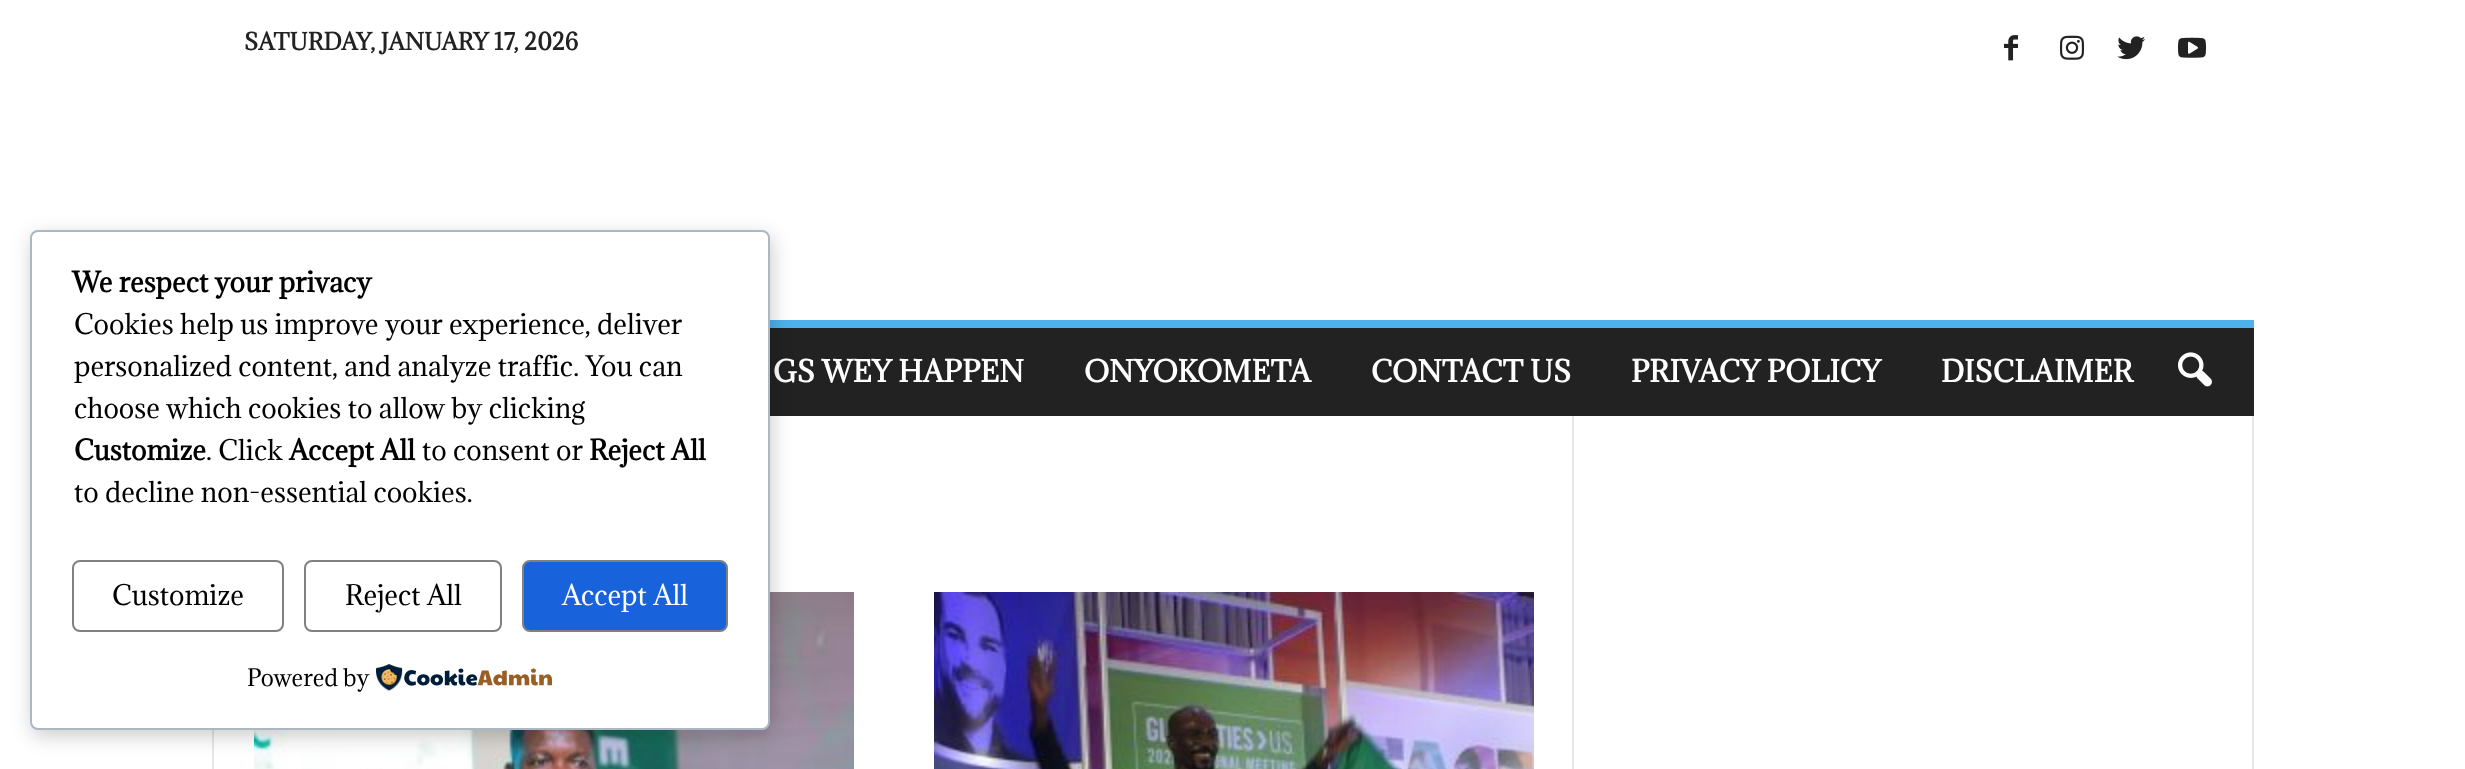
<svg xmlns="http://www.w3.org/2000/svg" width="2465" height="769">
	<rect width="100%" height="100%" fill="#FFFFFF" />
	<text x="244" y="50" font-family="Adamina" font-size="22" font-weight="700" fill="#222222">SATURDAY, JANUARY 17, 2026</text>
	<image x="2004" y="35" width="14" height="26" href="assets/img1.png" />
	<image x="2060" y="35" width="24" height="25" href="assets/img2.png" />
	<image x="2117" y="36" width="28" height="24" href="assets/img3.png" />
	<image x="2178" y="37" width="28" height="21" href="assets/img4.png" />
	<rect x="770" y="328" width="1484" height="88" fill="#222222" />
	<rect x="770" y="320" width="1484" height="8" fill="#4DB2EC" />
	<g font-family="Adamina" font-size="28" font-weight="700" fill="#FFFFFF">
		<text x="773" y="382">GS WEY HAPPEN</text>
		<text x="1084" y="382">ONYOKOMETA</text>
		<text x="1371" y="382">CONTACT US</text>
		<text x="1631" y="382">PRIVACY POLICY</text>
		<text x="1941" y="382">DISCLAIMER</text>
	</g>
	<image x="2178" y="352" width="34" height="35" href="assets/img5.png" />
	<rect x="212" y="730" width="2" height="39" fill="#E6E6E6" />
	<image x="254" y="592" width="600" height="177" href="assets/img6.png" />
	<image x="934" y="592" width="600" height="177" href="assets/img7.png" />
	<rect x="1572" y="416" width="2" height="353" fill="#E6E6E6" />
	<rect x="2252" y="416" width="2" height="353" fill="#E6E6E6" />
	<rect x="32" y="236" width="740" height="500" rx="8" fill="#000000" fill-opacity="0.2" filter="blur(10px)" />
	<rect x="31" y="231" width="738" height="498" rx="7" fill="#FFFFFF" stroke="#ABB8C3" stroke-width="2" />
	<text x="72" y="292" font-family="Adamina" font-size="26" font-weight="700" fill="#000000">We respect your privacy</text>
	<g font-family="Adamina" font-size="26" fill="#000000">
		<text x="74" y="334">Cookies help us improve your experience, deliver</text>
		<text x="74" y="376">personalized content, and analyze traffic. You can</text>
		<text x="74" y="418">choose which cookies to allow by clicking</text>
	</g>
	<text x="74" y="460" font-family="Adamina" font-size="26" font-weight="700" fill="#000000">Customize</text>
	<text x="206" y="460" font-family="Adamina" font-size="26" fill="#000000">. Click</text>
	<text x="289" y="460" font-family="Adamina" font-size="26" font-weight="700" fill="#000000">Accept All</text>
	<text x="422" y="460" font-family="Adamina" font-size="26" fill="#000000">to consent or</text>
	<text x="589" y="460" font-family="Adamina" font-size="26" font-weight="700" fill="#000000">Reject All</text>
	<text x="74" y="502" font-family="Adamina" font-size="26" fill="#000000">to decline non-essential cookies.</text>
	<rect x="73" y="561" width="210" height="70" rx="7" fill="none" stroke="#808080" stroke-width="2" />
	<text x="112" y="605" font-family="Adamina" font-size="26" fill="#000000">Customize</text>
	<rect x="305" y="561" width="196" height="70" rx="7" fill="none" stroke="#808080" stroke-width="2" />
	<text x="345" y="605" font-family="Adamina" font-size="26" fill="#000000">Reject All</text>
	<rect x="523" y="561" width="204" height="70" rx="7" fill="#1863DC" stroke="#808080" stroke-width="2" />
	<text x="562" y="605" font-family="Adamina" font-size="26" fill="#FFFFFF">Accept All</text>
	<text x="247" y="686" font-family="Adamina" font-size="22" fill="#000000">Powered by</text>
	<image x="376" y="664" width="177" height="27" href="assets/img8.png" />
</svg>
